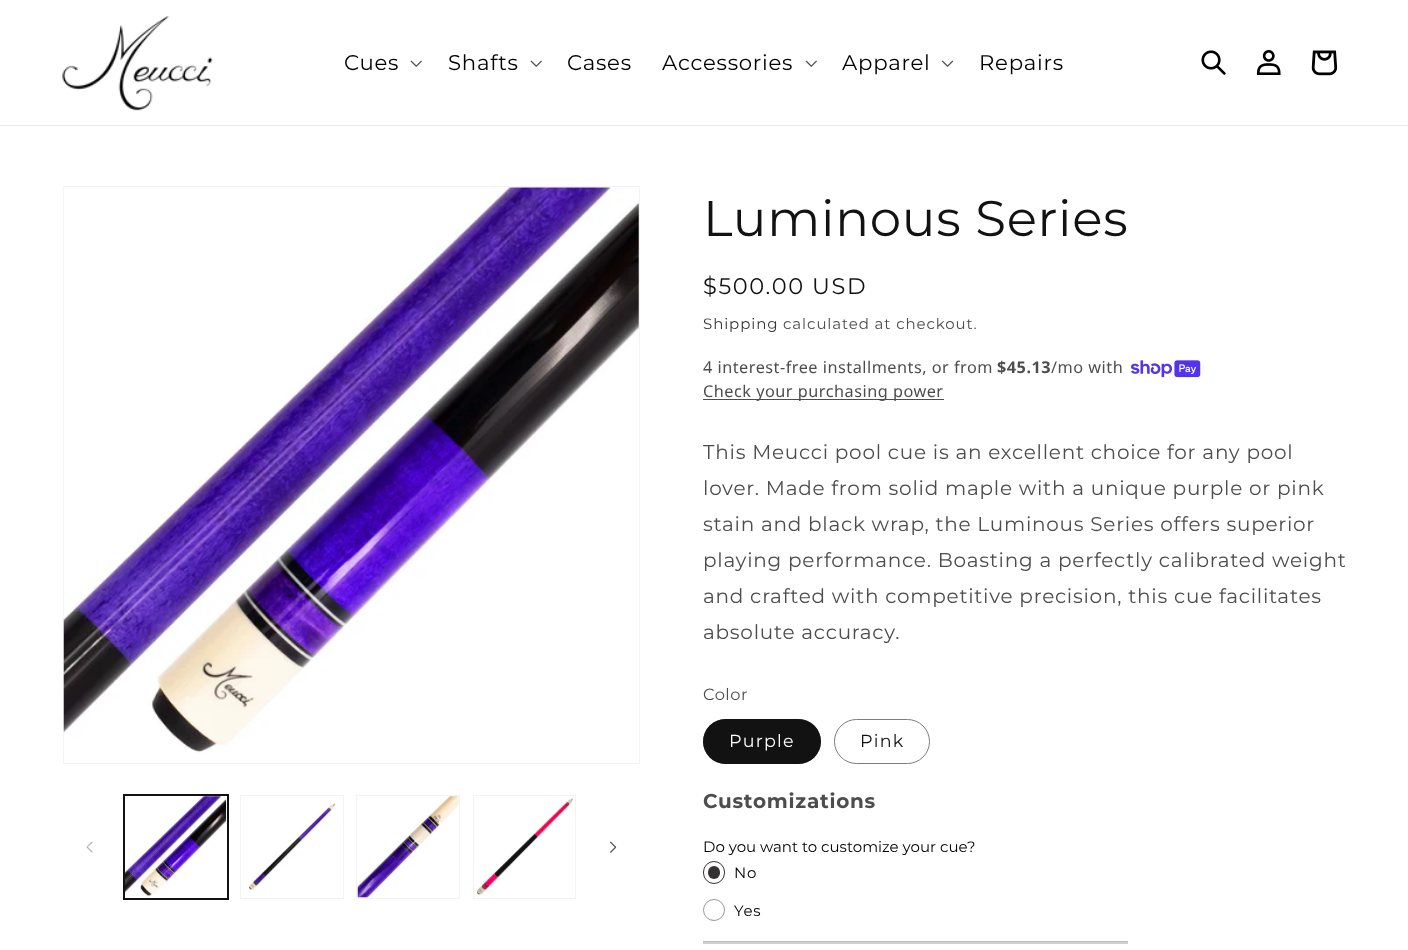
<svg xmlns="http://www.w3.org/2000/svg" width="1408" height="950">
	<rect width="100%" height="100%" fill="#FFFFFF" />
	<rect x="0" y="125" width="1408" height="1" fill="#ECECEC" />
	<image x="62" y="16" width="151" height="95" href="assets/img1.png" />
	<text x="344" y="70" font-family="Montserrat" font-size="21.25" font-weight="100" letter-spacing="0.75" fill="#000000">Cues</text>
	<image x="410" y="60" width="12" height="7" href="assets/img2.png" />
	<text x="448" y="70" font-family="Montserrat" font-size="21.25" font-weight="100" letter-spacing="0.75" fill="#000000">Shafts</text>
	<image x="530" y="60" width="12" height="7" href="assets/img2.png" />
	<g font-family="Montserrat" font-size="21.25" font-weight="100" letter-spacing="0.75" fill="#000000">
		<text x="567" y="70">Cases</text>
		<text x="662" y="70">Accessories</text>
	</g>
	<image x="805" y="60" width="12" height="7" href="assets/img2.png" />
	<text x="842" y="70" font-family="Montserrat" font-size="21.25" font-weight="100" letter-spacing="0.75" fill="#000000">Apparel</text>
	<image x="941" y="60" width="13" height="7" href="assets/img3.png" />
	<text x="979" y="70" font-family="Montserrat" font-size="21.25" font-weight="100" letter-spacing="0.75" fill="#000000">Repairs</text>
	<image x="1201" y="50" width="25" height="25" href="assets/img4.png" />
	<image x="1256" y="50" width="25" height="25" href="assets/img5.png" />
	<image x="1311" y="50" width="27" height="26" href="assets/img6.png" />
	<rect x="63.5" y="186.5" width="576" height="577" fill="none" stroke="#F3F3F3" />
	<image x="63" y="187" width="576" height="566" href="assets/img7.png" />
	<image x="86" y="841" width="7" height="12" href="assets/img8.png" />
	<rect x="123.5" y="794.5" width="105" height="105" fill="none" stroke="#121212" />
	<rect x="124.5" y="795.5" width="103" height="103" fill="none" stroke="#121212" />
	<image x="125" y="796" width="102" height="101" href="assets/img9.png" />
	<rect x="240.5" y="795.5" width="103" height="103" fill="none" stroke="#F3F3F3" />
	<image x="249" y="803" width="86" height="88" href="assets/img10.png" />
	<rect x="356.5" y="795.5" width="103" height="103" fill="none" stroke="#F3F3F3" />
	<image x="357" y="796" width="102" height="102" href="assets/img11.png" />
	<rect x="473.5" y="795.5" width="102" height="103" fill="none" stroke="#F3F3F3" />
	<image x="476" y="796" width="98" height="100" href="assets/img12.png" />
	<image x="610" y="841" width="7" height="12" href="assets/img13.png" />
	<text x="703" y="236" font-family="Montserrat" font-size="50" font-weight="100" letter-spacing="0.75" fill="#121212">Luminous Series</text>
	<text x="703" y="294" font-family="Montserrat" font-size="22.5" font-weight="100" letter-spacing="1.6" fill="#121212">$500.00 USD</text>
	<text x="703" y="329" font-family="Montserrat" font-size="15" font-weight="100" letter-spacing="0.9" fill="#363636">Shipping</text>
	<text x="783" y="329" font-family="Montserrat" font-size="15" font-weight="100" letter-spacing="0.9" fill="#4D4D4D">calculated at checkout.</text>
	<text x="703" y="373" font-family="Noto Sans" font-size="16.25" letter-spacing="0.5" fill="#4D4D4D">4 interest-free installments, or from</text>
	<text x="997" y="373" font-family="Noto Sans" font-size="16.25" font-weight="700" letter-spacing="0.5" fill="#4D4D4D">$45.13</text>
	<text x="1051" y="373" font-family="Noto Sans" font-size="16.25" letter-spacing="0.5" fill="#4D4D4D">/mo with</text>
	<image x="1131" y="360" width="70" height="18" href="assets/img14.png" />
	<rect x="703" y="399" width="241" height="1" fill="#4D4D4D" />
	<text x="703" y="397" font-family="Noto Sans" font-size="16.25" letter-spacing="0.5" fill="#4D4D4D">Check your purchasing power</text>
	<g font-family="Montserrat" font-size="20" font-weight="100" letter-spacing="0.75" fill="#4D4D4D">
		<text x="703" y="459">This Meucci pool cue is an excellent choice for any pool</text>
		<text x="703" y="495">lover. Made from solid maple with a unique purple or pink</text>
		<text x="703" y="531">stain and black wrap, the Luminous Series offers superior</text>
		<text x="703" y="567">playing performance. Boasting a perfectly calibrated weight</text>
		<text x="703" y="603">and crafted with competitive precision, this cue facilitates</text>
		<text x="703" y="639">absolute accuracy.</text>
	</g>
	<text x="703" y="700" font-family="Montserrat" font-size="16.25" font-weight="100" letter-spacing="0.5" fill="#4D4D4D">Color</text>
	<rect x="703" y="719" width="118" height="45" rx="22.5" fill="#121212" />
	<rect x="703.5" y="719.5" width="117" height="44" rx="22" fill="none" stroke="#121212" stroke-opacity="0.55" />
	<text x="729" y="747" font-family="Montserrat" font-size="17.5" font-weight="100" letter-spacing="1.25" fill="#FFFFFF">Purple</text>
	<rect x="834.5" y="719.5" width="95" height="44" rx="22" fill="none" stroke="#7D7D7D" />
	<text x="860" y="747" font-family="Montserrat" font-size="17.5" font-weight="100" letter-spacing="1.25" fill="#121212">Pink</text>
	<text x="703" y="808" font-family="Montserrat" font-size="20" font-weight="700" letter-spacing="0.75" fill="#4D4D4D">Customizations</text>
	<text x="703" y="852" font-family="Montserrat" font-size="15" font-weight="100" fill="#000000">Do you want to customize your cue?</text>
	<rect x="703.5" y="861.5" width="21" height="22" rx="10.5" fill="none" stroke="#353233" />
	<rect x="708" y="866" width="12" height="13" rx="6" fill="#353233" />
	<text x="734" y="878" font-family="Montserrat" font-size="15" font-weight="100" letter-spacing="0.75" fill="#000000">No</text>
	<circle cx="714" cy="910" r="10.5" fill="none" stroke="#9A9A9A" />
	<text x="734" y="916" font-family="Montserrat" font-size="15" font-weight="100" letter-spacing="0.75" fill="#000000">Yes</text>
	<rect x="703" y="942" width="425" height="2" fill="#D0D0D0" />
	<rect x="703" y="941" width="425" height="1" fill="#BDBABA" />
</svg>
